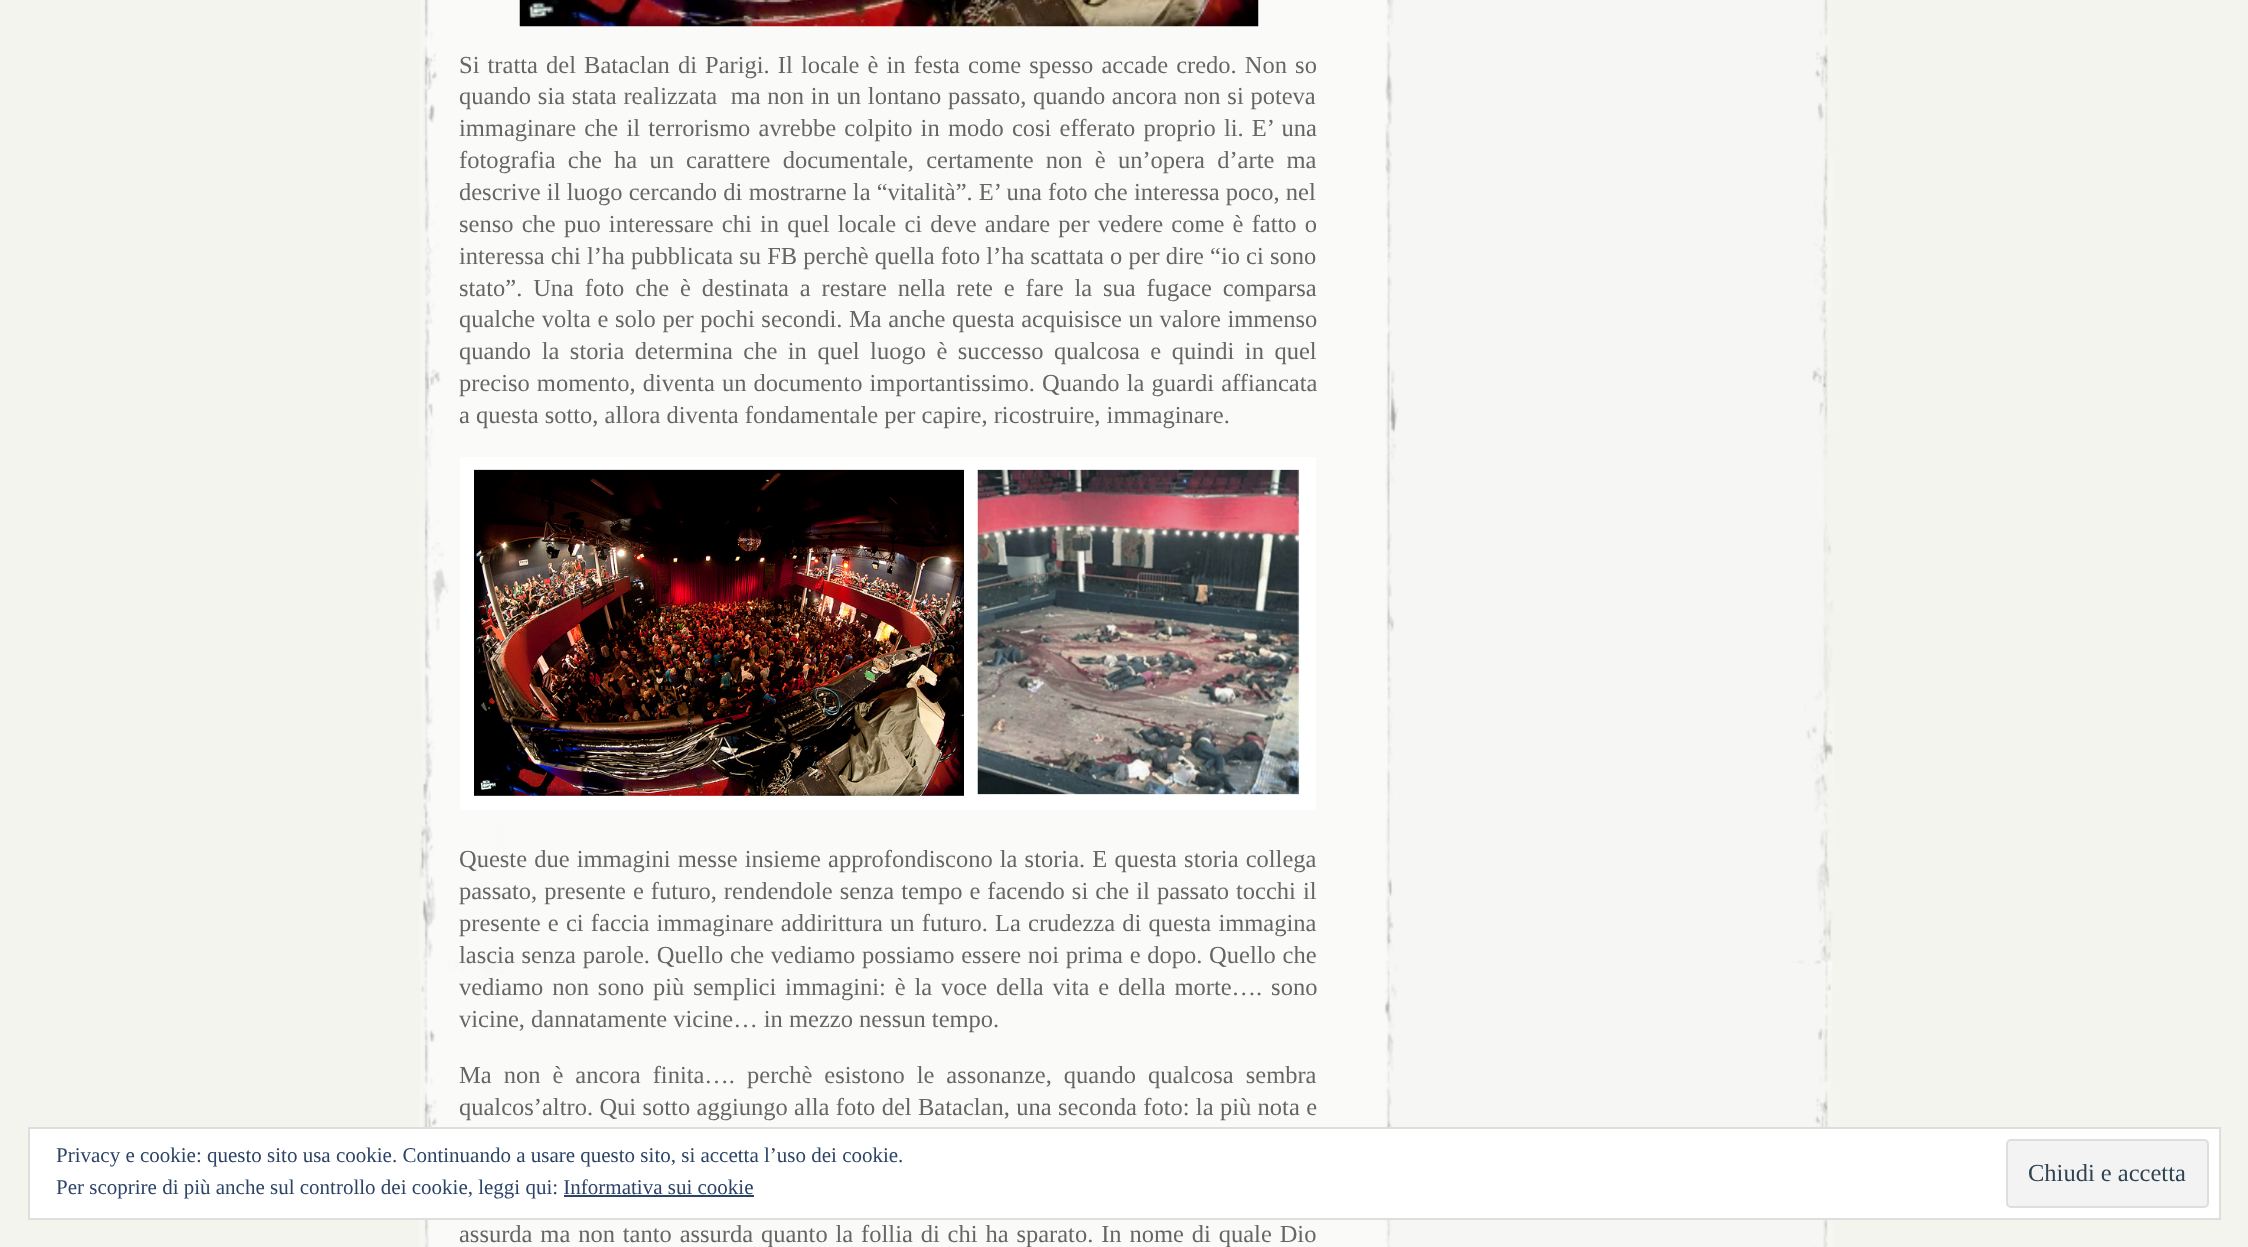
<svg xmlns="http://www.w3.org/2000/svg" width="2248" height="1247">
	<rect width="100%" height="100%" fill="#F3F4EE" />
	<image x="419" y="0" width="1415" height="1247" href="assets/img1.png" />
	<image x="519" y="0" width="740" height="27" href="assets/img2.png" />
	<g font-family="Liberation Serif" font-size="24.5" fill="#666666">
		<text x="459" y="73" word-spacing="2">Si tratta del Bataclan di Parigi. Il locale è in festa come spesso accade credo. Non so</text>
		<text x="459" y="104" word-spacing="0.6" xml:space="preserve">quando sia stata realizzata  ma non in un lontano passato, quando ancora non si poteva</text>
		<text x="459" y="136" word-spacing="2.1">immaginare che il terrorismo avrebbe colpito in modo cosi efferato proprio li. E’ una</text>
		<text x="459" y="168" word-spacing="6.1">fotografia che ha un carattere documentale, certamente non è un’opera d’arte ma</text>
		<text x="459" y="200" word-spacing="0.1">descrive il luogo cercando di mostrarne la “vitalità”. E’ una foto che interessa poco, nel</text>
		<text x="459" y="232" word-spacing="2.1">senso che puo interessare chi in quel locale ci deve andare per vedere come è fatto o</text>
		<text x="459" y="264">interessa chi l’ha pubblicata su FB perchè quella foto l’ha scattata o per dire “io ci sono</text>
		<text x="459" y="296" word-spacing="4.75">stato”. Una foto che è destinata a restare nella rete e fare la sua fugace comparsa</text>
		<text x="459" y="327" word-spacing="0.5">qualche volta e solo per pochi secondi. Ma anche questa acquisisce un valore immenso</text>
		<text x="459" y="359" word-spacing="4.4">quando la storia determina che in quel luogo è successo qualcosa e quindi in quel</text>
		<text x="459" y="391" word-spacing="1">preciso momento, diventa un documento importantissimo. Quando la guardi affiancata</text>
		<text x="459" y="423">a questa sotto, allora diventa fondamentale per capire, ricostruire, immaginare.</text>
	</g>
	<image x="460" y="457" width="856" height="353" href="assets/img3.png" />
	<g font-family="Liberation Serif" font-size="24.5" fill="#666666">
		<text x="459" y="867" word-spacing="1">Queste due immagini messe insieme approfondiscono la storia. E questa storia collega</text>
		<text x="459" y="899" word-spacing="0.9">passato, presente e futuro, rendendole senza tempo e facendo si che il passato tocchi il</text>
		<text x="459" y="931" word-spacing="1.1">presente e ci faccia immaginare addirittura un futuro. La crudezza di questa immagina</text>
		<text x="459" y="963" word-spacing="0.6">lascia senza parole. Quello che vediamo possiamo essere noi prima e dopo. Quello che</text>
		<text x="459" y="995" word-spacing="2.75">vediamo non sono più semplici immagini: è la voce della vita e della morte…. sono</text>
		<text x="459" y="1027">vicine, dannatamente vicine… in mezzo nessun tempo.</text>
		<text x="459" y="1083" word-spacing="5.9">Ma non è ancora finita…. perchè esistono le assonanze, quando qualcosa sembra</text>
		<text x="459" y="1115" word-spacing="0.25">qualcos’altro. Qui sotto aggiungo alla foto del Bataclan, una seconda foto: la più nota e</text>
		<text x="459" y="1242" word-spacing="1.75">assurda ma non tanto assurda quanto la follia di chi ha sparato. In nome di quale Dio</text>
	</g>
	<rect x="29" y="1128" width="2191" height="91" fill="#FFFFFF" stroke="#DEDEDE" stroke-width="2" />
	<text x="56" y="1162" font-family="Liberation Serif" font-size="21" fill="#2E4467">Privacy e cookie: questo sito usa cookie. Continuando a usare questo sito, si accetta l’uso dei cookie.</text>
	<rect x="2007" y="1140" width="201" height="67" rx="4" fill="#F3F3F3" stroke="#DEDEDE" stroke-width="2" />
	<text x="2028" y="1181" font-family="Liberation Serif" font-size="24.5" fill="#2E4453">Chiudi e accetta</text>
	<text x="56" y="1194" font-family="Liberation Serif" font-size="21" fill="#2E4467">Per scoprire di più anche sul controllo dei cookie, leggi qui: Informativa sui cookie</text>
	<rect x="564" y="1195" width="190" height="2" fill="#2E4467" />
</svg>
